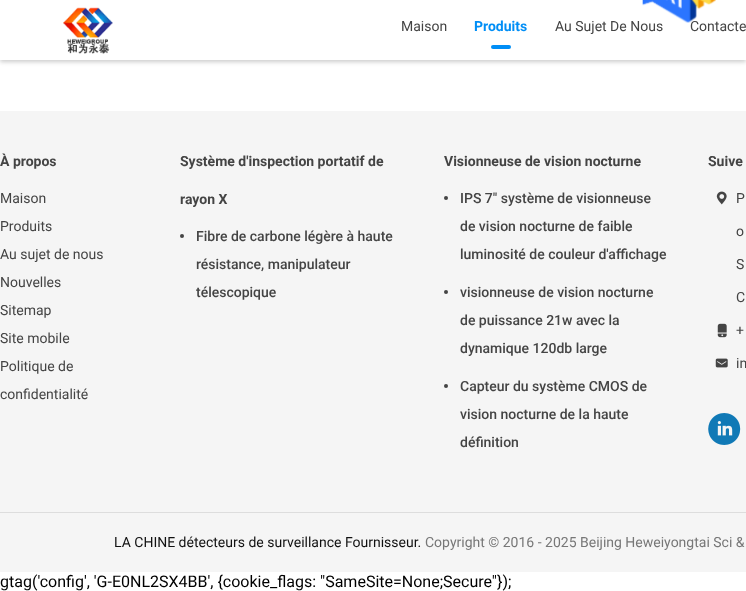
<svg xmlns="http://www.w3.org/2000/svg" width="746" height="591">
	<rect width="100%" height="100%" fill="#FFFFFF" />
	<rect x="0" y="2" width="746" height="60" fill="#000000" fill-opacity="0.2" filter="blur(2px)" />
	<rect x="0" y="0" width="746" height="60" fill="#FFFFFF" />
	<g font-family="Roboto" font-size="14" fill="#444444">
		<text x="555" y="31">Au Sujet De Nous</text>
		<text x="690" y="31">Contacte</text>
	</g>
	<image x="642" y="0" width="74" height="23" href="assets/img1.png" />
	<image x="63" y="7" width="50" height="47" href="assets/img2.png" />
	<text x="401" y="31" font-family="Roboto" font-size="14" fill="#444444">Maison</text>
	<text x="474" y="31" font-family="Roboto" font-size="14" font-weight="700" fill="#008EF6">Produits</text>
	<rect x="491" y="45" width="20" height="4" rx="2" fill="#008EF6" />
	<rect x="0" y="111" width="746" height="461" fill="#F5F5F5" />
	<text x="0" y="166" font-family="Roboto" font-size="14" font-weight="700" fill="#444444">À propos</text>
	<g font-family="Roboto" font-size="14" fill="#444444">
		<text x="0" y="203">Maison</text>
		<text x="0" y="231">Produits</text>
		<text x="0" y="259">Au sujet de nous</text>
		<text x="0" y="287">Nouvelles</text>
		<text x="0" y="315">Sitemap</text>
		<text x="0" y="343">Site mobile</text>
		<text x="0" y="371">Politique de</text>
		<text x="0" y="399">confidentialité</text>
	</g>
	<g font-family="Roboto" font-size="14" font-weight="700" fill="#444444">
		<text x="180" y="166">Système d'inspection portatif de</text>
		<text x="180" y="204">rayon X</text>
	</g>
	<circle cx="182" cy="236" r="2" fill="#444444" />
	<g font-family="Roboto" font-size="14" font-weight="500" fill="#444444">
		<text x="196" y="241">Fibre de carbone légère à haute</text>
		<text x="196" y="269">résistance, manipulateur</text>
		<text x="196" y="297">télescopique</text>
	</g>
	<text x="444" y="166" font-family="Roboto" font-size="14" font-weight="700" fill="#444444">Visionneuse de vision nocturne</text>
	<circle cx="446" cy="198" r="2" fill="#444444" />
	<g font-family="Roboto" font-size="14" font-weight="500" fill="#444444">
		<text x="460" y="203">IPS 7" système de visionneuse</text>
		<text x="460" y="231">de vision nocturne de faible</text>
		<text x="460" y="259">luminosité de couleur d'affichage</text>
	</g>
	<circle cx="446" cy="292" r="2" fill="#444444" />
	<g font-family="Roboto" font-size="14" font-weight="500" fill="#444444">
		<text x="460" y="297">visionneuse de vision nocturne</text>
		<text x="460" y="325">de puissance 21w avec la</text>
		<text x="460" y="353">dynamique 120db large</text>
	</g>
	<circle cx="446" cy="386" r="2" fill="#444444" />
	<g font-family="Roboto" font-size="14" font-weight="500" fill="#444444">
		<text x="460" y="391">Capteur du système CMOS de</text>
		<text x="460" y="419">vision nocturne de la haute</text>
		<text x="460" y="447">définition</text>
	</g>
	<text x="708" y="166" font-family="Roboto" font-size="14" font-weight="700" fill="#444444">Suive</text>
	<image x="716" y="191" width="11" height="14" href="assets/img3.png" />
	<g font-family="Roboto" font-size="14" fill="#444444">
		<text x="736" y="203">P</text>
		<text x="736" y="236">o</text>
		<text x="736" y="269">S</text>
		<text x="736" y="302">C</text>
	</g>
	<image x="717" y="323" width="10" height="15" href="assets/img4.png" />
	<text x="736" y="335" font-family="Roboto" font-size="14" fill="#444444">+</text>
	<image x="715" y="358" width="13" height="10" href="assets/img5.png" />
	<text x="736" y="368" font-family="Roboto" font-size="14" fill="#444444">in</text>
	<image x="708" y="413" width="33" height="32" href="assets/img6.png" />
	<rect x="0" y="512" width="746" height="1" fill="#DDDDDD" />
	<text x="114" y="547" font-family="Roboto" font-size="14" fill="#111111">LA CHINE détecteurs de surveillance Fournisseur.</text>
	<text x="425" y="547" font-family="Roboto" font-size="14" fill="#777777">Copyright © 2016 - 2025 Beijing Heweiyongtai Sci &amp;</text>
	<text x="0" y="587" font-family="Roboto" font-size="16" fill="#000000">gtag('config', 'G-E0NL2SX4BB', {cookie_flags: "SameSite=None;Secure"});</text>
</svg>
